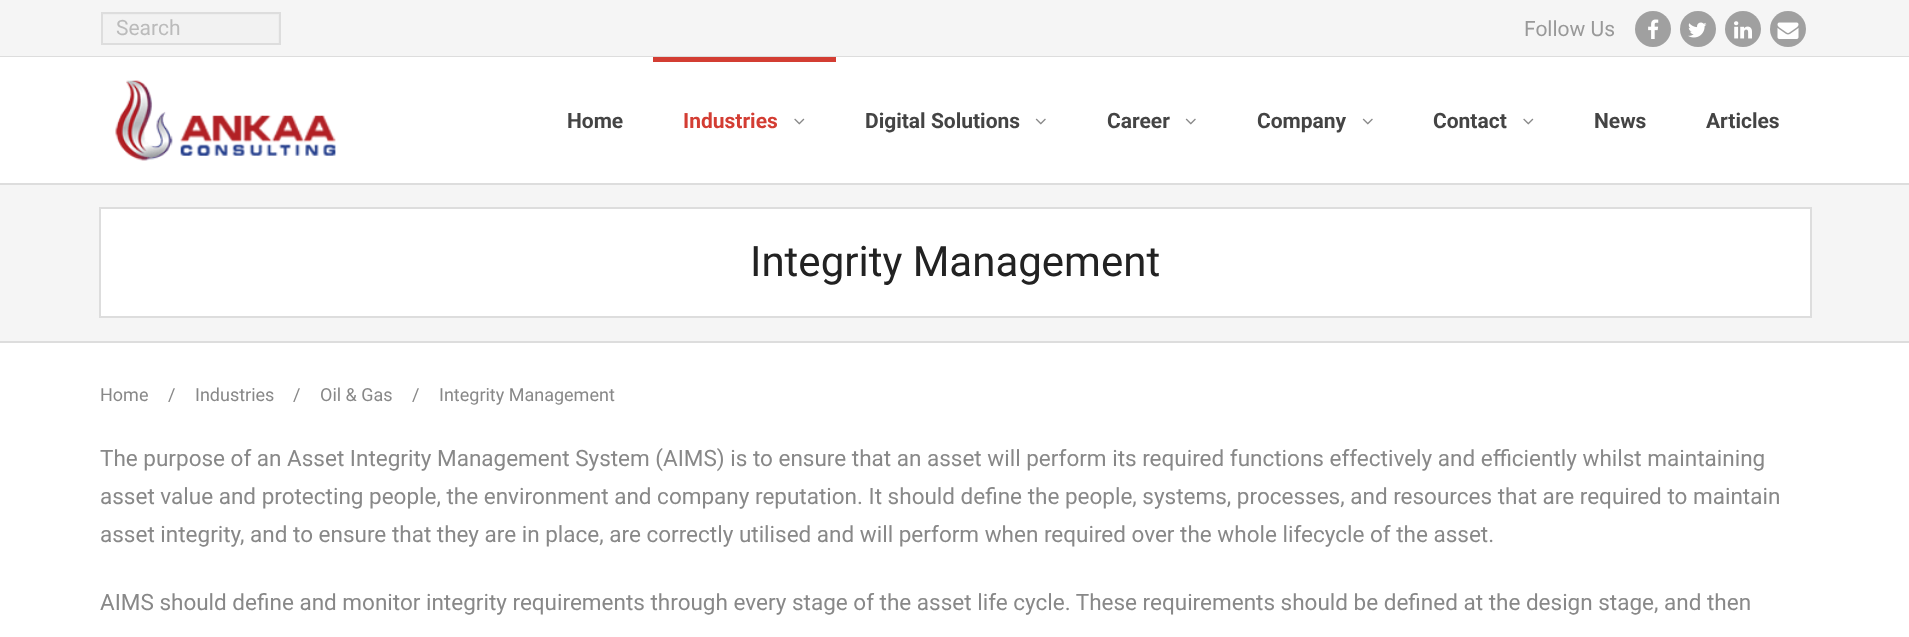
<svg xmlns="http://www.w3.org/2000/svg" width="1909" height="637">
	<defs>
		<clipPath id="clip1"><rect x="102" y="14" width="177" height="30" /></clipPath>
	</defs>
	<rect width="100%" height="100%" fill="#FFFFFF" />
	<rect x="0" y="183" width="1909" height="2" fill="#DDDDDD" />
	<rect x="0" y="0" width="1909" height="56" fill="#F5F5F5" />
	<rect x="0" y="56" width="1909" height="1" fill="#DDDDDD" />
	<rect x="103" y="15" width="175" height="28" fill="#F2F2F2" />
	<g clip-path="url(#clip1)">
		<path d="M-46-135H428V192H-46ZM100 15H278V45H100Z" fill="#EEEEEE" fill-rule="evenodd" />
	</g>
	<rect x="102" y="13" width="178" height="31" fill="none" stroke="#DDDDDD" stroke-width="2" />
	<text x="116" y="35" font-family="Roboto" font-size="21" fill="#BBBBBB">Search</text>
	<text x="1524" y="36" font-family="Roboto" font-size="21" fill="#999999">Follow Us</text>
	<circle cx="1653" cy="29" r="18" fill="#A0A0A0" />
	<image x="1648" y="19" width="11" height="20" href="assets/img1.png" />
	<circle cx="1698" cy="29" r="18" fill="#A0A0A0" />
	<image x="1688" y="22" width="19" height="16" href="assets/img2.png" />
	<circle cx="1743" cy="29" r="18" fill="#A0A0A0" />
	<image x="1734" y="21" width="18" height="18" href="assets/img3.png" />
	<circle cx="1788" cy="29" r="18" fill="#A0A0A0" />
	<image x="1777" y="22" width="22" height="17" href="assets/img4.png" />
	<image x="115" y="80" width="221" height="81" href="assets/img5.png" />
	<text x="567" y="128" font-family="Roboto" font-size="21" font-weight="700" fill="#444444">Home</text>
	<rect x="653" y="57" width="183" height="5" fill="#D33D33" />
	<text x="683" y="128" font-family="Roboto" font-size="21" font-weight="700" fill="#D33D33">Industries</text>
	<image x="794" y="118" width="11" height="7" href="assets/img6.png" />
	<text x="865" y="128" font-family="Roboto" font-size="21" font-weight="700" fill="#444444">Digital Solutions</text>
	<image x="1035" y="118" width="11" height="7" href="assets/img7.png" />
	<text x="1107" y="128" font-family="Roboto" font-size="21" font-weight="700" fill="#444444">Career</text>
	<image x="1185" y="118" width="11" height="7" href="assets/img7.png" />
	<text x="1257" y="128" font-family="Roboto" font-size="21" font-weight="700" fill="#444444">Company</text>
	<image x="1362" y="118" width="11" height="7" href="assets/img7.png" />
	<text x="1433" y="128" font-family="Roboto" font-size="21" font-weight="700" fill="#444444">Contact</text>
	<image x="1523" y="118" width="11" height="7" href="assets/img6.png" />
	<g font-family="Roboto" font-size="21" font-weight="700" fill="#444444">
		<text x="1594" y="128">News</text>
		<text x="1706" y="128">Articles</text>
	</g>
	<rect x="0" y="185" width="1909" height="156" fill="#F5F5F5" />
	<rect x="0" y="341" width="1909" height="2" fill="#DDDDDD" />
	<rect x="100" y="208" width="1711" height="109" fill="#FFFFFF" stroke="#DDDDDD" stroke-width="2" />
	<text x="750" y="276" font-family="Roboto" font-size="42" fill="#222222">Integrity Management</text>
	<g font-family="Roboto" font-size="18" fill="#888888">
		<text x="100" y="401">Home</text>
		<text x="168" y="401">/</text>
		<text x="195" y="401">Industries</text>
		<text x="293" y="401">/</text>
		<text x="320" y="401">Oil &amp; Gas</text>
		<text x="412" y="401">/</text>
		<text x="439" y="401">Integrity Management</text>
	</g>
	<g font-family="Roboto" font-size="22.5" fill="#888888">
		<text x="100" y="466">The purpose of an Asset Integrity Management System (AIMS) is to ensure that an asset will perform its required functions effectively and efficiently whilst maintaining</text>
		<text x="100" y="504">asset value and protecting people, the environment and company reputation. It should define the people, systems, processes, and resources that are required to maintain</text>
		<text x="100" y="542">asset integrity, and to ensure that they are in place, are correctly utilised and will perform when required over the whole lifecycle of the asset.</text>
		<text x="100" y="610">AIMS should define and monitor integrity requirements through every stage of the asset life cycle. These requirements should be defined at the design stage, and then</text>
	</g>
</svg>
